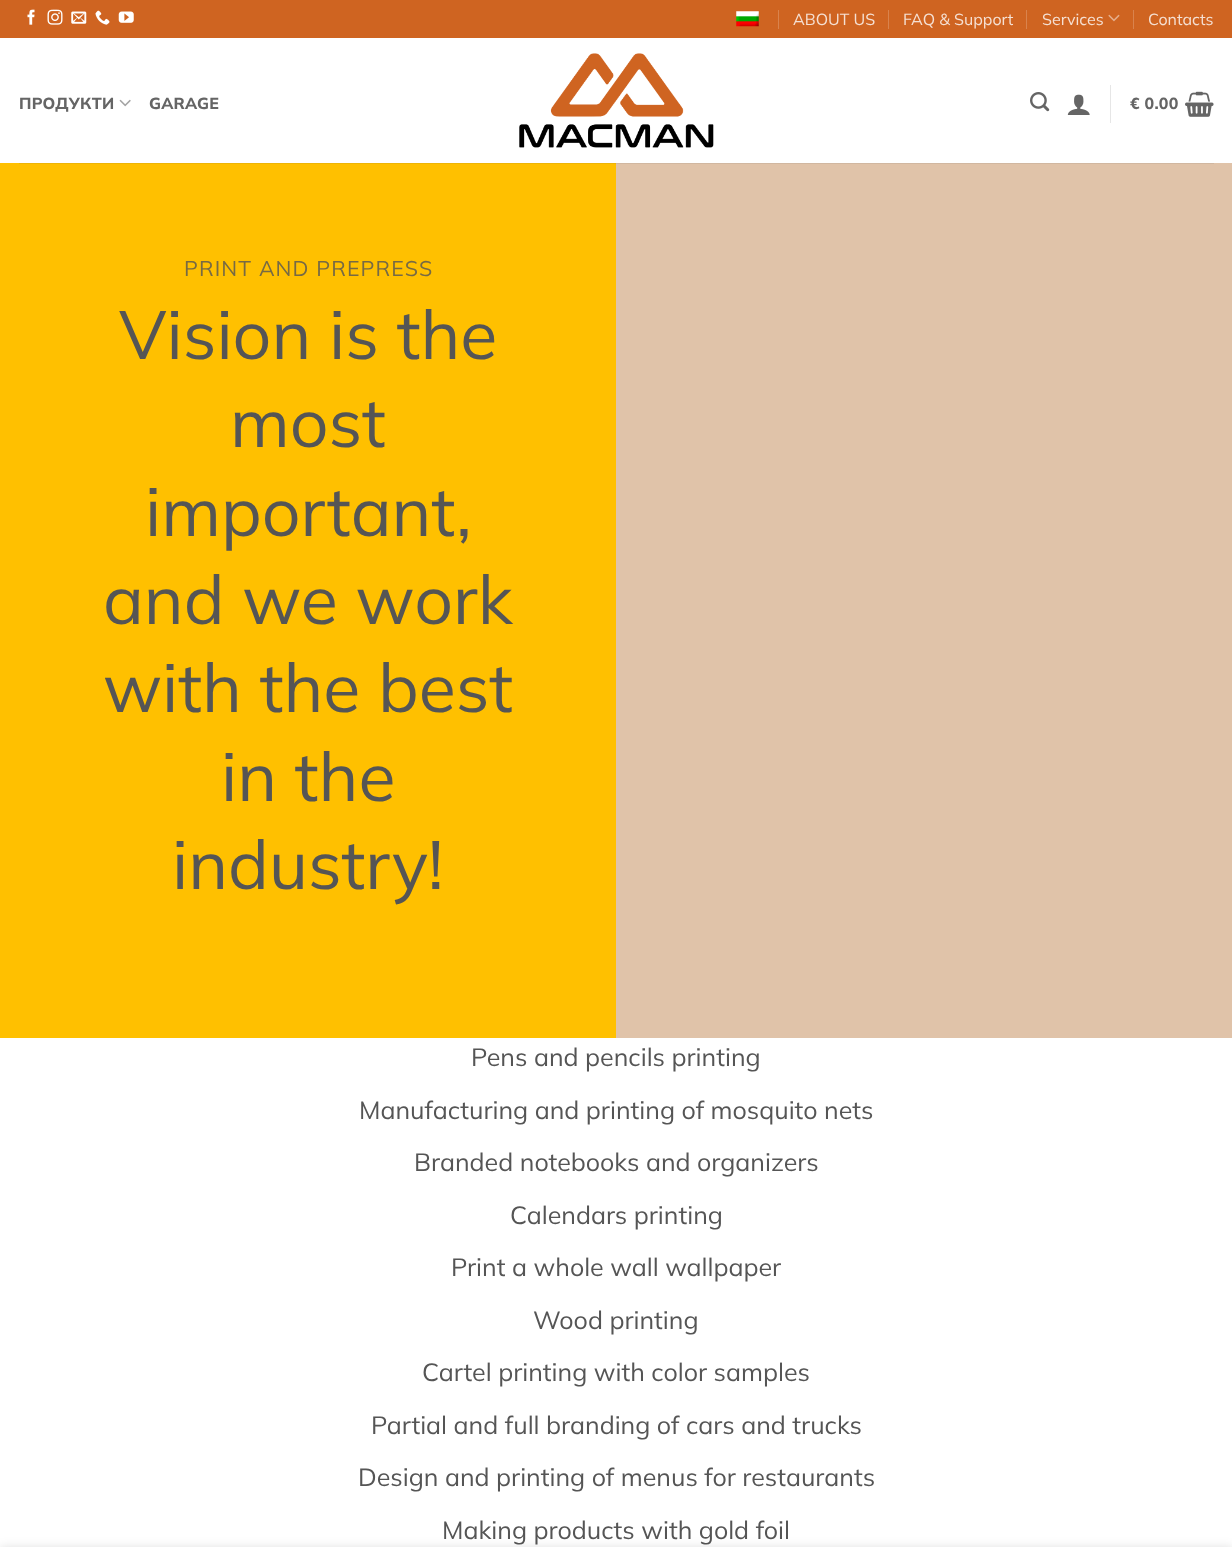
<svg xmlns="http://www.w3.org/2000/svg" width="1232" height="1547">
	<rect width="100%" height="100%" fill="#FFFFFF" />
	<rect x="0" y="0" width="1232" height="38" fill="#CF6421" />
	<image x="27" y="9" width="8" height="16" href="assets/img1.png" />
	<image x="47" y="9" width="16" height="16" href="assets/img2.png" />
	<image x="71" y="11" width="16" height="13" href="assets/img3.png" />
	<image x="95" y="10" width="15" height="15" href="assets/img4.png" />
	<image x="118" y="11" width="16" height="12" href="assets/img5.png" />
	<image x="736" y="11" width="23" height="16" href="assets/img6.png" />
	<rect x="778" y="10" width="1" height="19" fill="#D9834D" />
	<text x="793" y="25" font-family="Mulish" font-size="16" fill="#F5E0D3">ABOUT US</text>
	<rect x="888" y="10" width="1" height="19" fill="#D9834D" />
	<text x="903" y="25" font-family="Mulish" font-size="16" fill="#F5E0D3">FAQ &amp; Support</text>
	<rect x="1026" y="10" width="1" height="19" fill="#D9834D" />
	<text x="1042" y="25" font-family="Mulish" font-size="16" fill="#F5E0D3">Services</text>
	<image x="1108" y="14" width="12" height="8" href="assets/img7.png" />
	<rect x="1133" y="10" width="1" height="19" fill="#D9834D" />
	<text x="1148" y="25" font-family="Mulish" font-size="16" fill="#F5E0D3">Contacts</text>
	<text x="19" y="109" font-family="Mulish" font-size="16" font-weight="800" letter-spacing="0.25" fill="#656565">ПРОДУКТИ</text>
	<image x="119" y="99" width="12" height="8" href="assets/img8.png" />
	<text x="149" y="109" font-family="Mulish" font-size="16" font-weight="800" letter-spacing="0.25" fill="#656565">GARAGE</text>
	<image x="519" y="53" width="195" height="95" href="assets/img9.png" />
	<image x="1030" y="92" width="20" height="20" href="assets/img10.png" />
	<image x="1067" y="94" width="23" height="21" href="assets/img11.png" />
	<rect x="1110" y="85" width="1" height="38" fill="#E6E6E6" />
	<text x="1130" y="109" font-family="Mulish" font-size="16" font-weight="800" letter-spacing="0.25" fill="#656565">€ 0.00</text>
	<image x="1185" y="91" width="29" height="26" href="assets/img12.png" />
	<rect x="0" y="163" width="616" height="875" fill="#FFC000" />
	<rect x="19" y="163" width="597" height="1" fill="#EDB407" />
	<text x="184" y="276" font-family="Mulish" font-size="21.25" letter-spacing="1.1" fill="#776A44">PRINT AND PREPRESS</text>
	<g font-family="Mulish" font-size="68" fill="#555555">
		<text x="119" y="359">Vision is the</text>
		<text x="230" y="447">most</text>
		<text x="145" y="536">important,</text>
		<text x="103" y="624">and we work</text>
		<text x="103" y="712">with the best</text>
		<text x="221" y="801">in the</text>
		<text x="172" y="889">industry!</text>
	</g>
	<rect x="616" y="163" width="616" height="875" fill="#E0C3A9" />
	<rect x="616" y="163" width="598" height="1" fill="#D1B7A0" />
	<g font-family="Mulish" font-size="25" fill="#555555">
		<text x="471" y="1066">Pens and pencils printing</text>
		<text x="359" y="1119">Manufacturing and printing of mosquito nets</text>
		<text x="414" y="1171">Branded notebooks and organizers</text>
		<text x="510" y="1224">Calendars printing</text>
		<text x="451" y="1276">Print a whole wall wallpaper</text>
		<text x="533" y="1329">Wood printing</text>
		<text x="422" y="1381">Cartel printing with color samples</text>
		<text x="371" y="1434">Partial and full branding of cars and trucks</text>
		<text x="358" y="1486">Design and printing of menus for restaurants</text>
		<text x="442" y="1539">Making products with gold foil</text>
	</g>
	<rect x="0" y="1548" width="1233" height="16" fill="#000000" fill-opacity="0.14" filter="blur(5.5px)" />
</svg>
